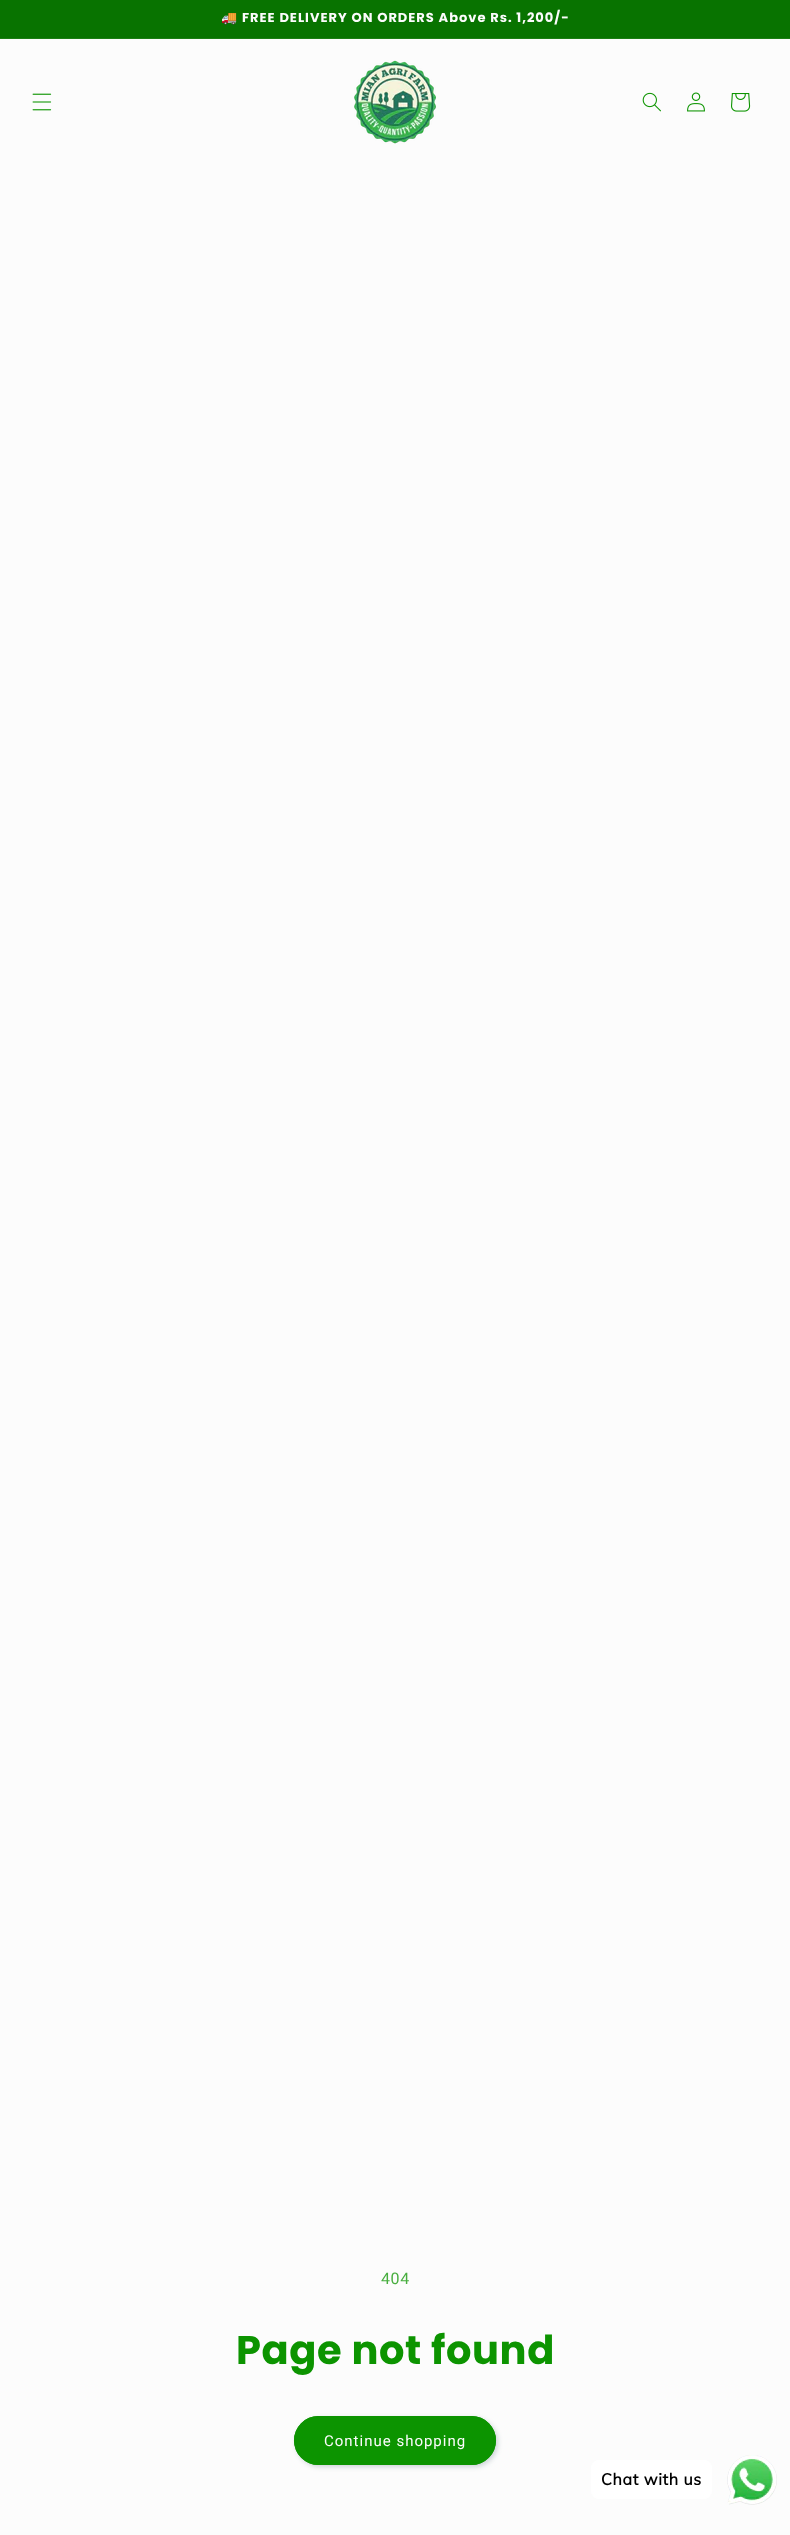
<svg xmlns="http://www.w3.org/2000/svg" width="790" height="2535">
	<rect width="100%" height="100%" fill="#FCFCFC" />
	<rect x="0" y="0" width="790" height="38" fill="#087300" />
	<rect x="0" y="38" width="790" height="1" fill="#1C7E14" />
	<text x="221" y="22" font-family="Noto Color Emoji" font-size="13" font-weight="700" letter-spacing="1" fill="#FCFCFC">🚚</text>
	<text x="242" y="22" font-family="Poppins" font-size="13" font-weight="700" letter-spacing="1" fill="#FCFCFC">FREE DELIVERY ON ORDERS Above Rs. 1,200/-</text>
	<image x="32" y="93" width="20" height="18" href="assets/img1.png" />
	<image x="354" y="60" width="82" height="84" href="assets/img2.png" />
	<image x="642" y="92" width="19" height="20" href="assets/img3.png" />
	<image x="687" y="92" width="18" height="20" href="assets/img4.png" />
	<image x="731" y="93" width="20" height="19" href="assets/img5.png" />
	<text x="381" y="2284" font-family="Roboto" font-size="16" letter-spacing="0.6" fill="#48AE3F">404</text>
	<text x="236" y="2364" font-family="Poppins" font-size="40" font-weight="700" letter-spacing="0.6" fill="#0C9400">Page not found</text>
	<rect x="296" y="2418" width="202" height="49" rx="24.5" fill="#103948" fill-opacity="0.2" filter="blur(2.5px)" />
	<rect x="294" y="2416" width="202" height="49" rx="24.5" fill="#0C9400" />
	<rect x="295" y="2417" width="200" height="47" rx="23.5" fill="none" stroke="#0C9400" stroke-width="2" />
	<text x="324" y="2446" font-family="Roboto" font-size="15" letter-spacing="1" fill="#FCFCFC">Continue shopping</text>
	<image x="727" y="2455" width="50" height="50" href="assets/img6.png" />
	<rect x="591" y="2460" width="121" height="39" rx="8" fill="#FFFFFF" />
	<text x="601" y="2485" font-family="Muli" font-size="16" font-weight="700" letter-spacing="0.6" fill="#000000">Chat with us</text>
</svg>
